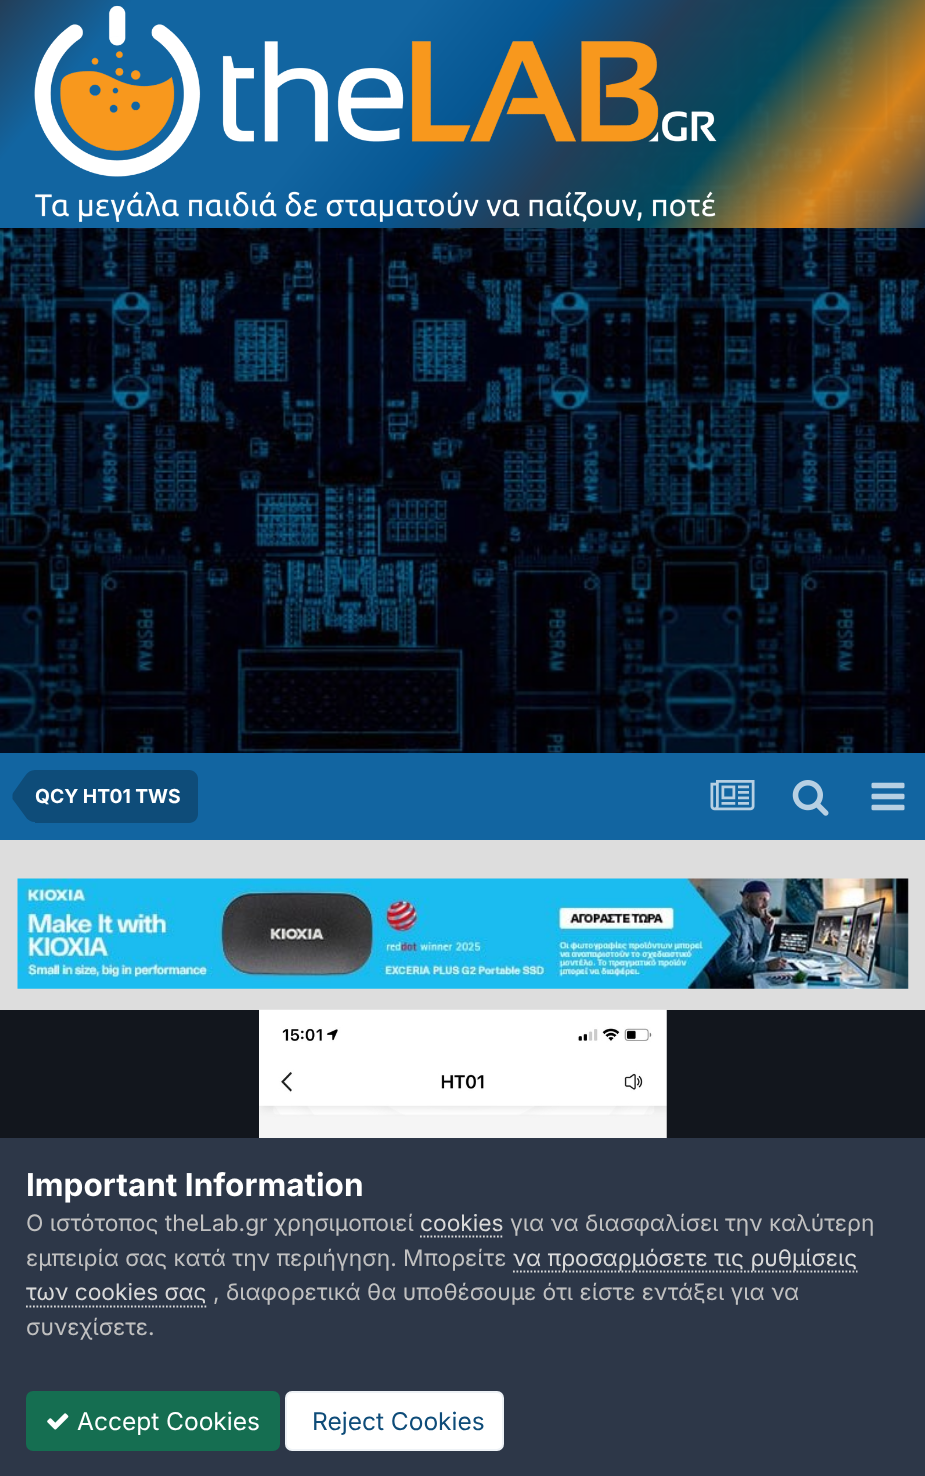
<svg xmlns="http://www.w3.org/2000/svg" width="925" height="1476">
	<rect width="100%" height="100%" fill="#FFFFFF" />
	<image x="0" y="0" width="925" height="753" href="assets/img1.png" />
	<image x="34" y="5" width="683" height="217" href="assets/img2.png" />
	<rect x="0" y="753" width="925" height="87" fill="#1265A1" />
	<path d="M35 770H189C194 770 198 774 198 779V814C198 819 194 823 189 823H35Z" fill="#0E4C79" />
	<path d="M12.5 799V796H35V822C31 822 27.5 820 25 816ZM35 770V796H12.5C12.5 795 12.5 794 13 793L25 776C27.5 772 31 770 35 770Z" fill="#0E4C79" />
	<text x="35" y="803" font-family="Inter" font-size="19.25" font-weight="700" fill="#FFFFFF">QCY HT01 TWS</text>
	<image x="710" y="780" width="45" height="31" href="assets/img3.png" />
	<image x="792" y="780" width="37" height="36" href="assets/img4.png" />
	<image x="871" y="782" width="34" height="29" href="assets/img5.png" />
	<rect x="0" y="840" width="925" height="170" fill="#DDDDDD" />
	<image x="17" y="878" width="892" height="111" href="assets/img6.png" />
	<rect x="0" y="1010" width="925" height="128" fill="#12161D" />
	<image x="259" y="1009" width="408" height="129" href="assets/img7.png" />
	<rect x="0" y="1138" width="925" height="338" fill="#2D3748" />
	<text x="26" y="1196" font-family="Inter" font-size="31.5" font-weight="700" fill="#FFFFFF">Important Information</text>
	<text x="26" y="1231" font-family="Inter" font-size="22.75" fill="#C0C0C0">Ο ιστότοπος theLab.gr χρησιμοποιεί</text>
	<text x="420" y="1231" font-family="Inter" font-size="22.75" fill="#DADADA">cookies</text>
	<path d="M420 1236.5H504" fill="none" stroke="#DADADA" stroke-width="1.8" stroke-dasharray="1.75 1.75" />
	<g font-family="Inter" font-size="22.75" fill="#C0C0C0">
		<text x="510" y="1231">για να διασφαλίσει την καλύτερη</text>
		<text x="26" y="1266">εμπειρία σας κατά την περιήγηση. Μπορείτε</text>
	</g>
	<path d="M513 1271.5H857.5" fill="none" stroke="#DADADA" stroke-width="1.8" stroke-dasharray="1.75 1.75" />
	<g font-family="Inter" font-size="22.75" fill="#DADADA">
		<text x="513" y="1266">να προσαρμόσετε τις ρυθμίσεις</text>
		<text x="26" y="1300">των cookies σας</text>
	</g>
	<path d="M26 1306.5H206.5" fill="none" stroke="#DADADA" stroke-width="1.8" stroke-dasharray="1.75 1.75" />
	<g font-family="Inter" font-size="22.75" fill="#C0C0C0">
		<text x="213" y="1300">, διαφορετικά θα υποθέσουμε ότι είστε εντάξει για να</text>
		<text x="26" y="1335">συνεχίσετε.</text>
	</g>
	<rect x="26" y="1391" width="254" height="60" rx="7" fill="#156E51" />
	<image x="47" y="1413" width="22" height="17" href="assets/img8.png" />
	<text x="77" y="1430" font-family="Inter" font-size="24.5" fill="#FFFFFF">Accept Cookies</text>
	<rect x="285" y="1391" width="219" height="60" rx="7" fill="#FFFFFF" />
	<rect x="286" y="1392" width="217" height="58" rx="6" fill="none" stroke="#0E4C79" stroke-opacity="0.07" stroke-width="2" />
	<text x="312" y="1430" font-family="Inter" font-size="24.5" fill="#0E4C79">Reject Cookies</text>
</svg>
